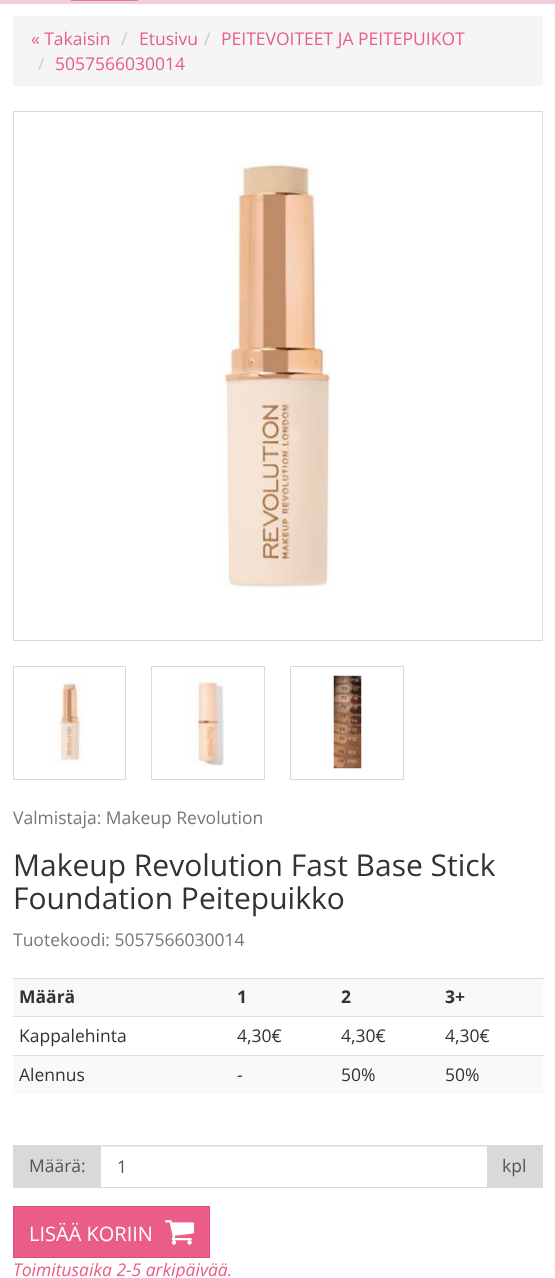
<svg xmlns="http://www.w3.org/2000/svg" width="555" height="1278">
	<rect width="100%" height="100%" fill="#FFFFFF" />
	<rect x="0" y="0" width="555" height="4" fill="#F1CDDE" />
	<rect x="71" y="0" width="67" height="1" fill="#DB7DA9" />
	<rect x="13" y="16" width="530" height="70" fill="#F5F5F5" />
	<text x="31" y="45" font-family="Open Sans" font-size="17.5" fill="#E95D87">« Takaisin</text>
	<text x="121" y="45" font-family="Open Sans" font-size="17.5" fill="#CCCCCC">/</text>
	<text x="139" y="45" font-family="Open Sans" font-size="17.5" fill="#E95D87">Etusivu</text>
	<text x="204" y="45" font-family="Open Sans" font-size="17.5" fill="#CCCCCC">/</text>
	<text x="221" y="45" font-family="Open Sans" font-size="17.5" fill="#E95D87">PEITEVOITEET JA PEITEPUIKOT</text>
	<text x="38" y="70" font-family="Open Sans" font-size="17.5" fill="#CCCCCC">/</text>
	<text x="55" y="70" font-family="Open Sans" font-size="17.5" fill="#E95D87">5057566030014</text>
	<rect x="13.5" y="111.5" width="529" height="529" fill="none" stroke="#D9D9D9" />
	<image x="215" y="162" width="117" height="434" href="assets/img1.png" />
	<rect x="13.5" y="666.5" width="112" height="113" fill="none" stroke="#D9D9D9" />
	<image x="54" y="674" width="29" height="91" href="assets/img2.png" />
	<rect x="151.5" y="666.5" width="113" height="113" fill="none" stroke="#D9D9D9" />
	<image x="186" y="678" width="38" height="88" href="assets/img3.png" />
	<rect x="290.5" y="666.5" width="113" height="113" fill="none" stroke="#D9D9D9" />
	<image x="333" y="675" width="29" height="94" href="assets/img4.png" />
	<text x="13" y="824" font-family="Open Sans" font-size="17.5" fill="#777777">Valmistaja: Makeup Revolution</text>
	<g font-family="Open Sans" font-size="30" fill="#333333">
		<text x="13" y="876">Makeup Revolution Fast Base Stick</text>
		<text x="13" y="909">Foundation Peitepuikko</text>
	</g>
	<text x="13" y="946" font-family="Open Sans" font-size="17.5" fill="#777777">Tuotekoodi: 5057566030014</text>
	<rect x="13" y="979" width="530" height="37" fill="#F9F9F9" />
	<g font-family="Open Sans" font-size="17.5" font-weight="700" fill="#333333">
		<text x="19" y="1003">Määrä</text>
		<text x="237" y="1003">1</text>
		<text x="341" y="1003">2</text>
	</g>
	<rect x="13" y="978" width="531" height="1" fill="#DDDDDD" />
	<text x="445" y="1003" font-family="Open Sans" font-size="17.5" font-weight="700" fill="#333333">3+</text>
	<g font-family="Open Sans" font-size="17.5" fill="#333333">
		<text x="19" y="1042">Kappalehinta</text>
		<text x="237" y="1042">4,30€</text>
		<text x="341" y="1042">4,30€</text>
	</g>
	<rect x="13" y="1016" width="531" height="1" fill="#DDDDDD" />
	<text x="445" y="1042" font-family="Open Sans" font-size="17.5" fill="#333333">4,30€</text>
	<rect x="13" y="1056" width="530" height="38" fill="#F9F9F9" />
	<g font-family="Open Sans" font-size="17.5" fill="#333333">
		<text x="19" y="1081">Alennus</text>
		<text x="237" y="1081">-</text>
		<text x="341" y="1081">50%</text>
	</g>
	<rect x="13" y="1055" width="531" height="1" fill="#DDDDDD" />
	<text x="445" y="1081" font-family="Open Sans" font-size="17.5" fill="#333333">50%</text>
	<rect x="13" y="1145" width="87" height="43" fill="#D9D9D9" />
	<text x="29" y="1172" font-family="Open Sans" font-size="17.5" fill="#555555">Määrä:</text>
	<rect x="101" y="1146" width="385" height="1" fill="#ECECEC" />
	<rect x="100.5" y="1145.5" width="387" height="42" fill="none" stroke="#D9D9D9" />
	<text x="117" y="1173" font-family="Open Sans" font-size="17.5" fill="#555555">1</text>
	<rect x="488" y="1145" width="55" height="43" fill="#D9D9D9" />
	<text x="502" y="1172" font-family="Open Sans" font-size="17.5" fill="#555555">kpl</text>
	<rect x="13.5" y="1206.5" width="196" height="51" fill="#E95D87" stroke="#E64776" />
	<text x="29" y="1241" font-family="Open Sans" font-size="20" fill="#FFFFFF">LISÄÄ KORIIN</text>
	<image x="165" y="1220" width="29" height="25" href="assets/img5.png" />
	<text x="13" y="1276" font-family="Open Sans" font-size="17.5" font-style="italic" fill="#E95D87">Toimitusaika 2-5 arkipäivää.</text>
</svg>
